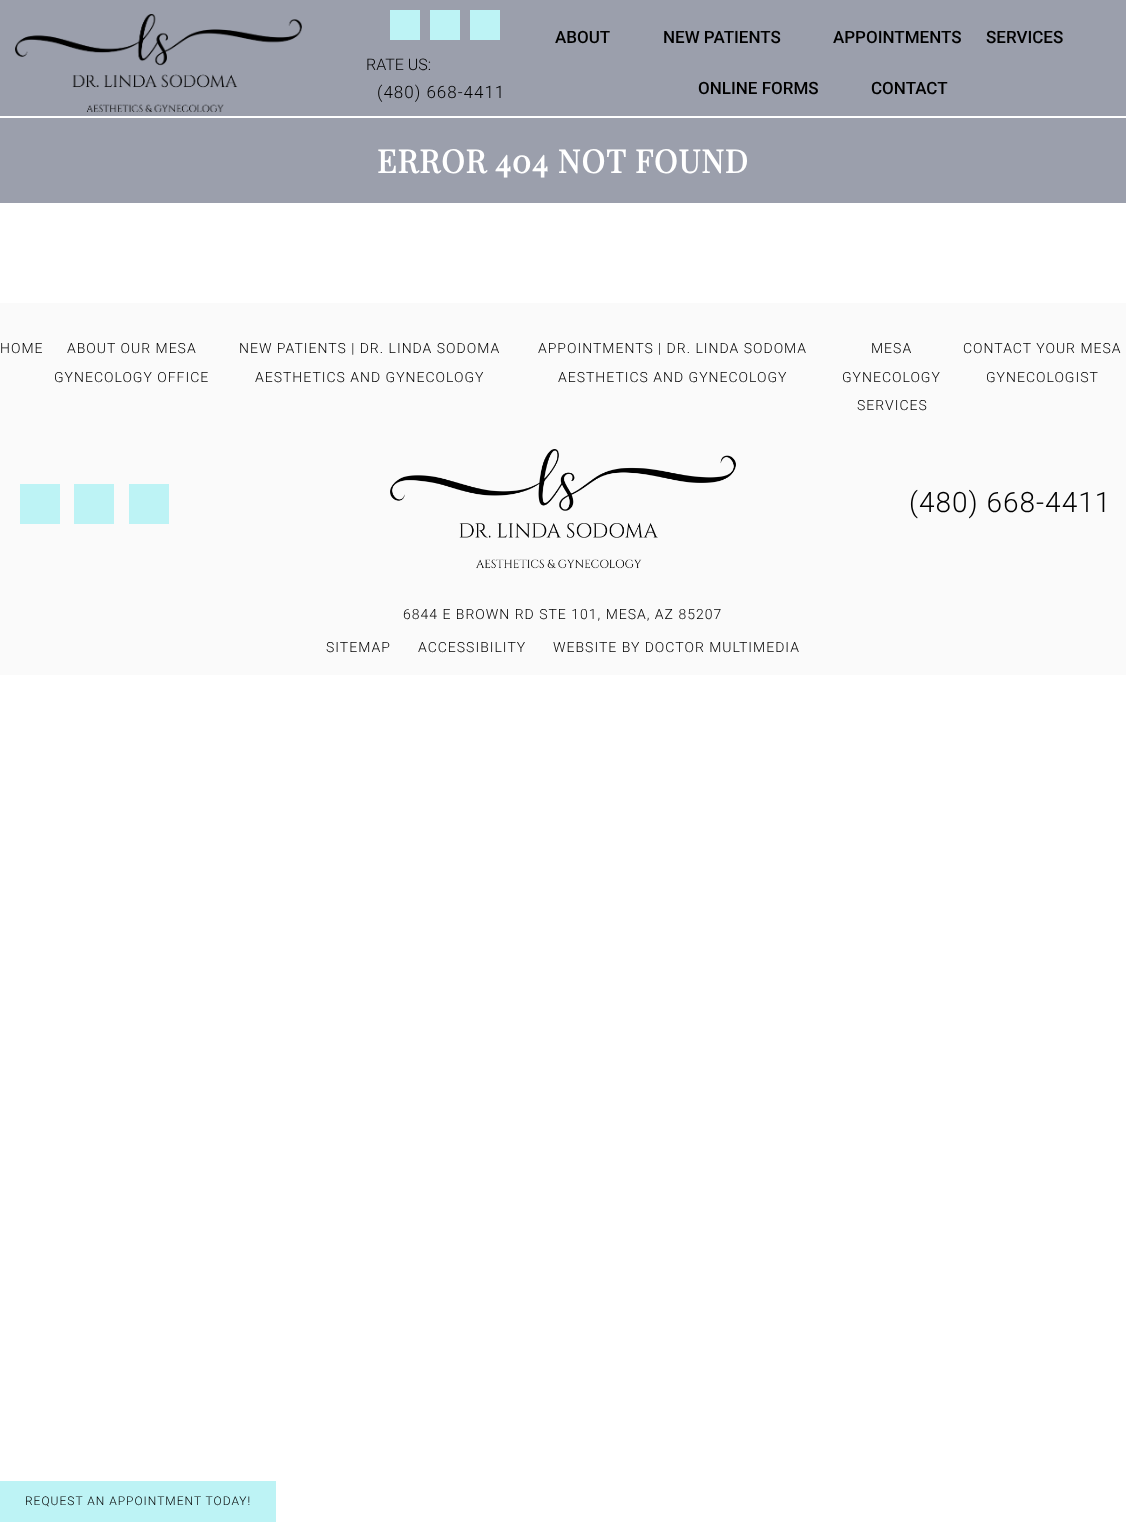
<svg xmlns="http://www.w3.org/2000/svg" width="1126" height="1522">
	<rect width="100%" height="100%" fill="#FFFFFF" />
	<rect x="0" y="0" width="1126" height="116" fill="#9B9FAC" />
	<image x="15" y="14" width="287" height="98" href="assets/img1.png" />
	<rect x="390" y="10" width="30" height="30" fill="#BDF3F5" />
	<rect x="430" y="10" width="30" height="30" fill="#BDF3F5" />
	<rect x="470" y="10" width="30" height="30" fill="#BDF3F5" />
	<text x="366" y="70" font-family="Roboto" font-size="16" font-weight="300" fill="#000000">RATE US:</text>
	<text x="377" y="98" font-family="Roboto" font-size="17" font-weight="300" letter-spacing="1" fill="#000000">(480) 668-4411</text>
	<g font-family="Roboto" font-size="17" font-weight="500" fill="#000000">
		<text x="555" y="43">ABOUT</text>
		<text x="663" y="43">NEW PATIENTS</text>
		<text x="833" y="43">APPOINTMENTS</text>
		<text x="986" y="43">SERVICES</text>
		<text x="698" y="94">ONLINE FORMS</text>
		<text x="871" y="94">CONTACT</text>
	</g>
	<rect x="0" y="118" width="1126" height="85" fill="#9B9FAC" />
	<text x="377" y="173" font-family="Playfair Display" font-size="32" font-weight="700" letter-spacing="1" fill="#FFFFFF">ERROR 404 NOT FOUND</text>
	<rect x="0" y="303" width="1126" height="372" fill="#FAFAFA" />
	<g font-family="Roboto" font-size="14" font-weight="300" letter-spacing="1" fill="#000000">
		<text x="0" y="353">HOME</text>
		<text x="67" y="353">ABOUT OUR MESA</text>
		<text x="54" y="382">GYNECOLOGY OFFICE</text>
		<text x="239" y="353">NEW PATIENTS | DR. LINDA SODOMA</text>
		<text x="255" y="382">AESTHETICS AND GYNECOLOGY</text>
		<text x="538" y="353">APPOINTMENTS | DR. LINDA SODOMA</text>
		<text x="558" y="382">AESTHETICS AND GYNECOLOGY</text>
		<text x="871" y="353">MESA</text>
		<text x="842" y="382">GYNECOLOGY</text>
		<text x="857" y="410">SERVICES</text>
		<text x="963" y="353">CONTACT YOUR MESA</text>
		<text x="986" y="382">GYNECOLOGIST</text>
	</g>
	<rect x="20" y="484" width="40" height="40" fill="#BDF3F5" />
	<rect x="74" y="484" width="40" height="40" fill="#BDF3F5" />
	<rect x="129" y="484" width="40" height="40" fill="#BDF3F5" />
	<image x="390" y="449" width="346" height="120" href="assets/img2.png" />
	<text x="909" y="512" font-family="Roboto" font-size="28" font-weight="300" letter-spacing="1" fill="#000000">(480) 668-4411</text>
	<g font-family="Roboto" font-size="14" font-weight="300" letter-spacing="1" fill="#000000">
		<text x="403" y="619">6844 E BROWN RD STE 101, MESA, AZ 85207</text>
		<text x="326" y="652">SITEMAP</text>
		<text x="418" y="652">ACCESSIBILITY</text>
		<text x="553" y="652">WEBSITE BY DOCTOR MULTIMEDIA</text>
	</g>
	<rect x="0" y="1481" width="276" height="41" fill="#BDF3F5" />
	<text x="25" y="1505" font-family="Roboto" font-size="12" font-weight="300" letter-spacing="1" fill="#000000">REQUEST AN APPOINTMENT TODAY!</text>
</svg>
